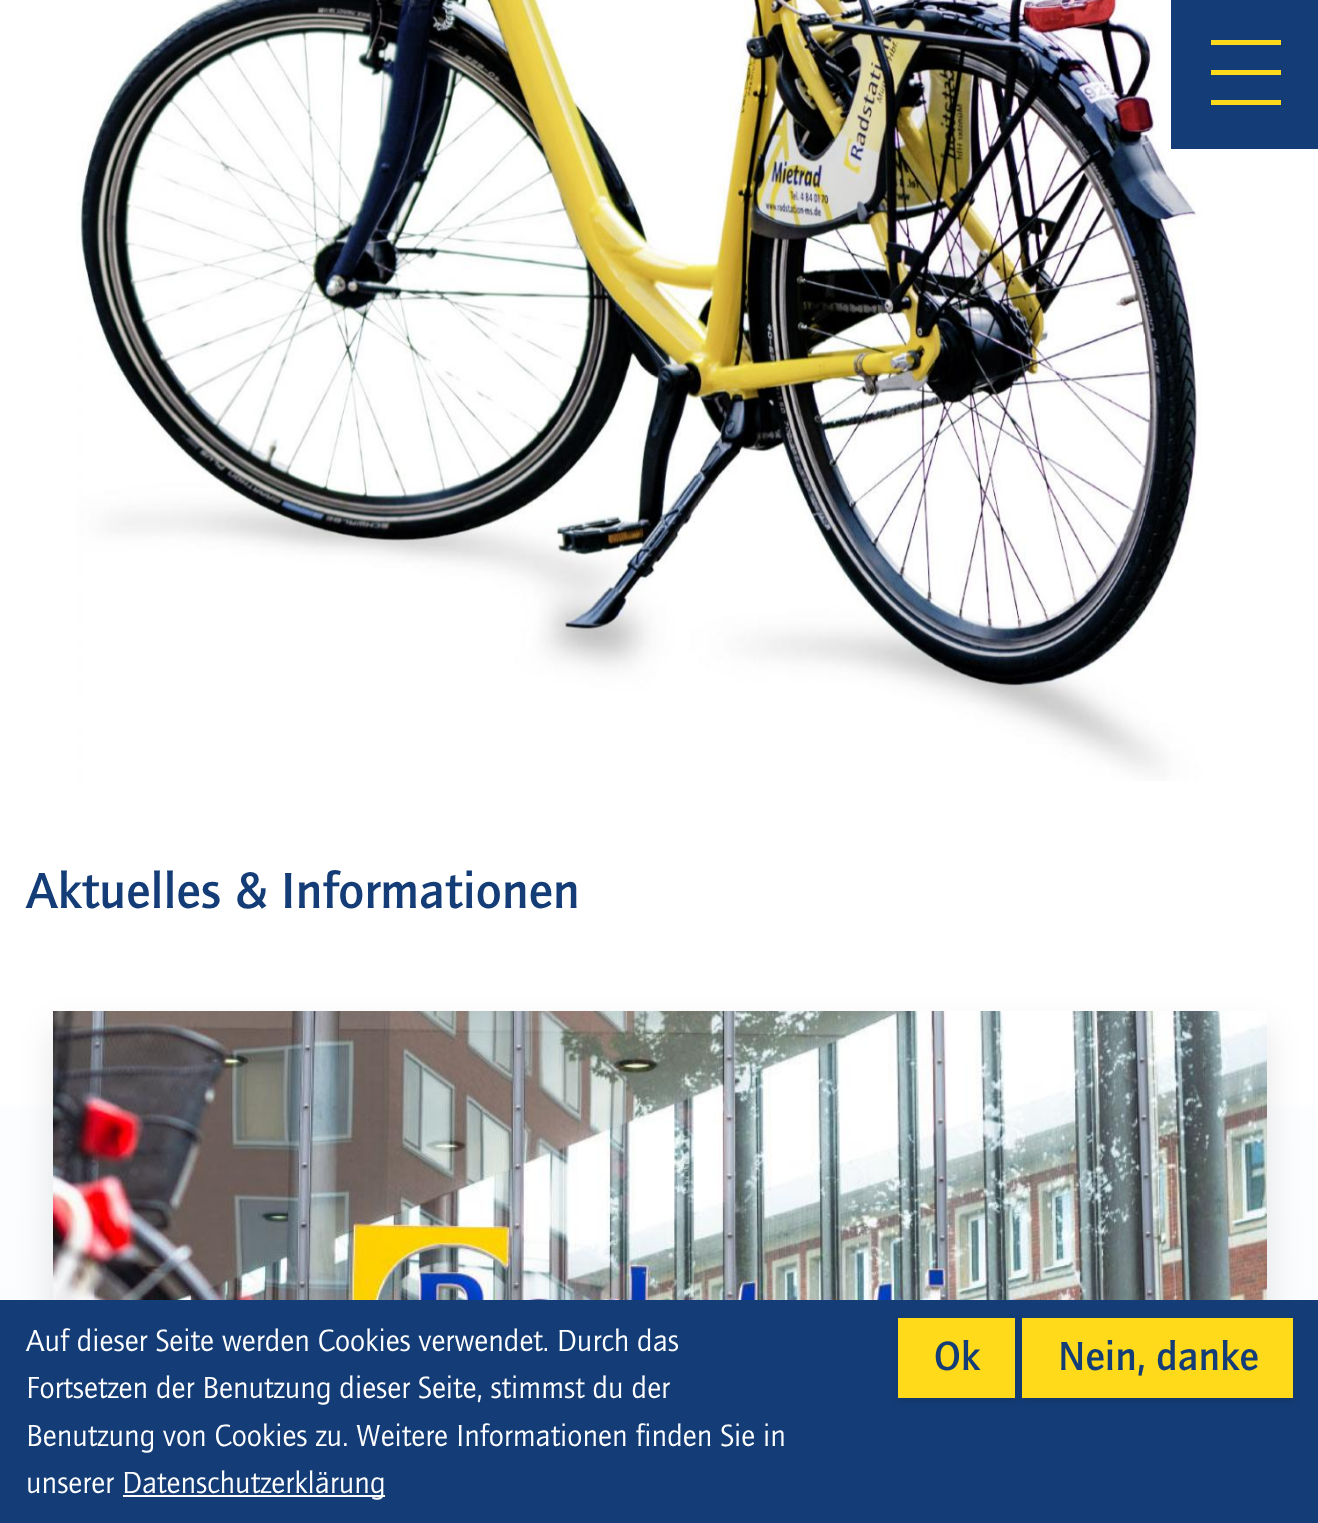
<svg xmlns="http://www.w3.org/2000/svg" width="1318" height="1523">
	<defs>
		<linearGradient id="g1" gradientUnits="userSpaceOnUse" x1="660" y1="861" x2="660" y2="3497"><stop offset="0" stop-color="#FFFFFF" /><stop offset="1" stop-color="#E4EDFA" /></linearGradient>
	</defs>
	<rect width="100%" height="100%" fill="#FFFFFF" />
	<image x="76" y="0" width="1126" height="781" href="assets/img1.png" />
	<rect x="1171" y="0" width="147" height="149" fill="#143D77" />
	<rect x="1211" y="40" width="70" height="5" fill="#FFDA1A" />
	<rect x="1211" y="70" width="70" height="5" fill="#FFDA1A" />
	<rect x="1211" y="100" width="70" height="5" fill="#FFDA1A" />
	<rect x="0" y="1105" width="1318" height="195" fill="url(#g1)" />
	<text x="26" y="908" font-family="'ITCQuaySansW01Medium'" font-size="52.5" font-weight="500" fill="#143D77">Aktuelles &amp; Informationen</text>
	<rect x="53" y="1029" width="1214" height="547" fill="#000000" fill-opacity="0.1" filter="blur(17.5px)" />
	<image x="53" y="1011" width="1214" height="289" href="assets/img2.png" />
	<rect x="0" y="1300" width="1318" height="223" fill="#143D77" />
	<g font-family="'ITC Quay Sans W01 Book'" font-size="31.5" fill="#FFFFFF">
		<text x="26" y="1351">Auf dieser Seite werden Cookies verwendet. Durch das</text>
		<text x="26" y="1398">Fortsetzen der Benutzung dieser Seite, stimmst du der</text>
		<text x="26" y="1446">Benutzung von Cookies zu. Weitere Informationen finden Sie in</text>
		<text x="26" y="1493">unserer</text>
	</g>
	<rect x="123" y="1495" width="262" height="2" fill="#FFFFFF" />
	<text x="122" y="1493" font-family="'ITC Quay Sans W01 Book'" font-size="31.5" fill="#FFFFFF">Datenschutzerklärung</text>
	<rect x="898" y="1321" width="117" height="81" fill="#000000" fill-opacity="0.1" filter="blur(3.5px)" />
	<rect x="898" y="1318" width="117" height="80" fill="#FFDA1A" />
	<text x="934" y="1370" font-family="'ITCQuaySansW01Medium'" font-size="42" font-weight="500" fill="#143D77">Ok</text>
	<rect x="1022" y="1321" width="271" height="81" fill="#000000" fill-opacity="0.1" filter="blur(3.5px)" />
	<rect x="1022" y="1318" width="271" height="80" fill="#FFDA1A" />
	<text x="1058" y="1370" font-family="'ITCQuaySansW01Medium'" font-size="42" font-weight="500" fill="#143D77">Nein, danke</text>
</svg>
